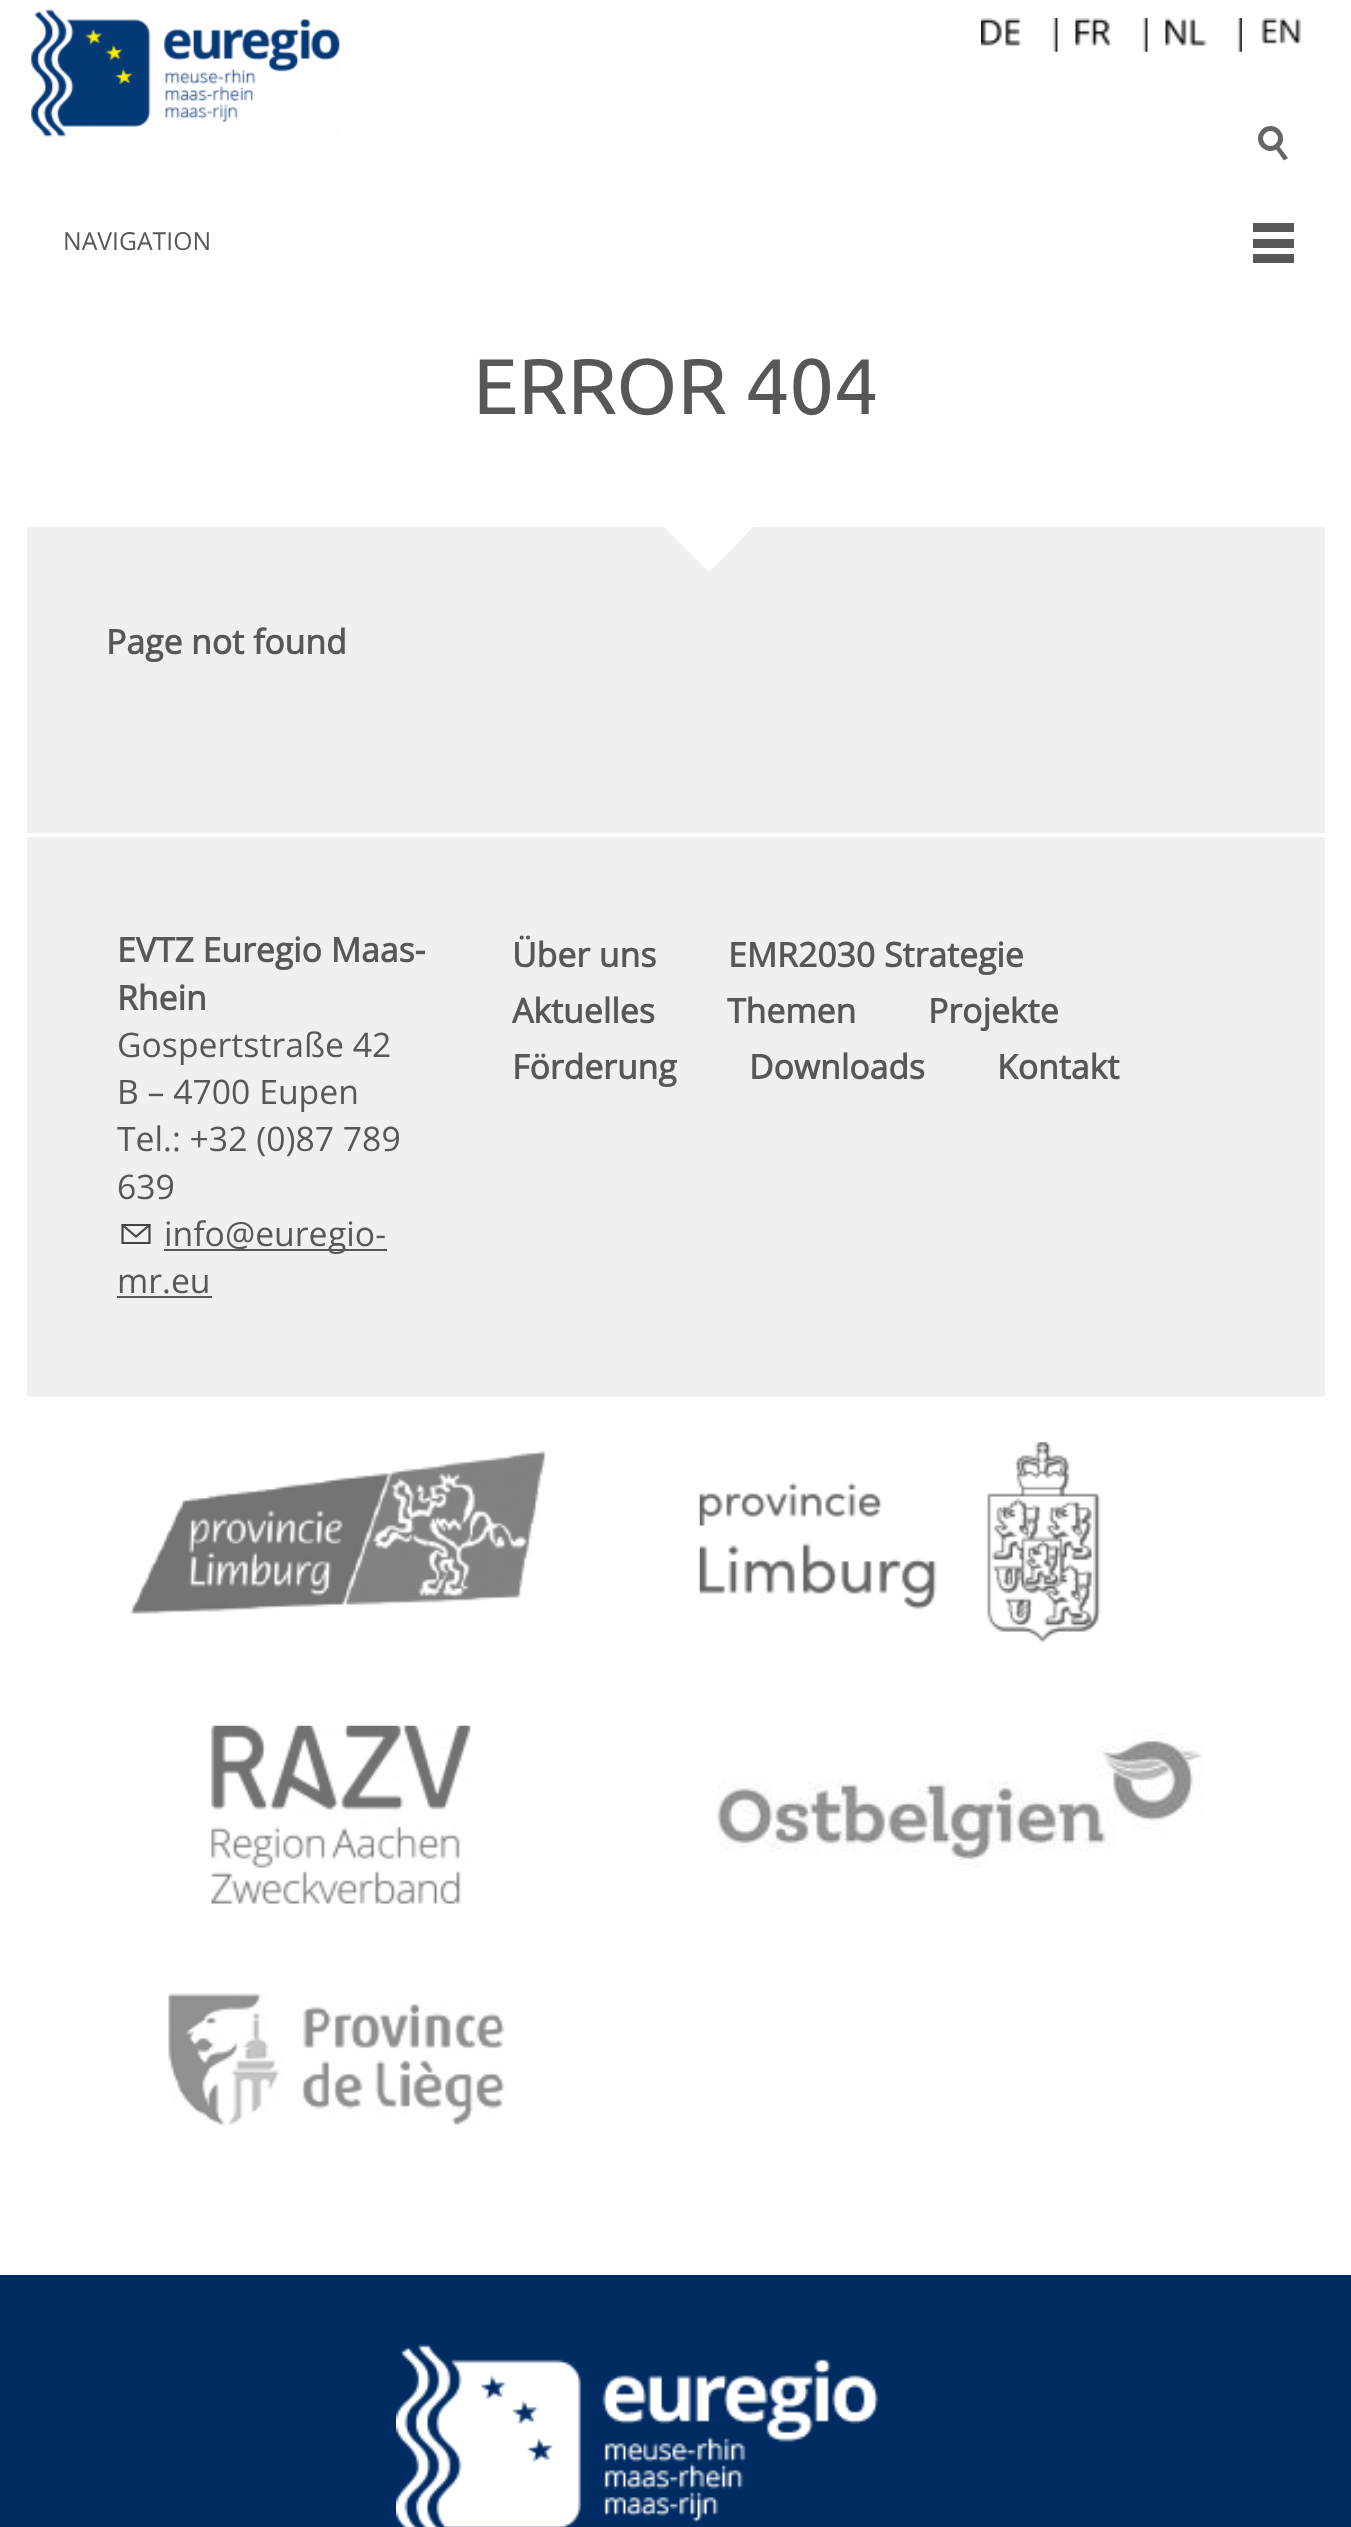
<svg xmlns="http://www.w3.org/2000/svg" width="1351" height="2527">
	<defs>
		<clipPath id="clip1"><rect x="27" y="527" width="1298" height="306" /></clipPath>
	</defs>
	<rect width="100%" height="100%" fill="#FFFFFF" />
	<image x="31" y="9" width="309" height="128" href="assets/img1.png" />
	<image x="981" y="18" width="77" height="34" href="assets/img2.png" />
	<image x="1075" y="18" width="73" height="34" href="assets/img3.png" />
	<image x="1165" y="18" width="77" height="34" href="assets/img4.png" />
	<image x="1261" y="18" width="41" height="26" href="assets/img5.png" />
	<circle cx="1270.5" cy="138.5" r="10" fill="none" stroke="#666666" stroke-width="5" />
	<path d="M1278.5 145.5L1288 158L1284 160.5L1275 148Z" fill="#666666" />
	<text x="63" y="250" font-family="Open Sans" font-size="24.75" fill="#575757">NAVIGATION</text>
	<rect x="1253" y="223" width="41" height="9" fill="#575757" />
	<rect x="1253" y="239" width="41" height="9" fill="#575757" />
	<rect x="1253" y="254" width="41" height="9" fill="#575757" />
	<text x="473" y="414" font-family="Ubuntu" font-size="78.75" fill="#575757">ERROR 404</text>
	<rect x="27" y="527" width="1298" height="306" fill="#F0F0F0" />
	<g clip-path="url(#clip1)">
		<path d="M652 515H765L709 572Z" fill="#FFFFFF" />
	</g>
	<text x="106" y="654" font-family="Open Sans" font-size="33.75" font-weight="700" fill="#575757">Page not found</text>
	<rect x="27" y="837" width="1298" height="560" fill="#F0F0F0" />
	<g font-family="Open Sans" font-size="33.75" font-weight="700" fill="#575757">
		<text x="117" y="962">EVTZ Euregio Maas-</text>
		<text x="117" y="1010">Rhein</text>
	</g>
	<g font-family="Open Sans" font-size="33.75" fill="#575757">
		<text x="117" y="1057">Gospertstraße 42</text>
		<text x="117" y="1104">B – 4700 Eupen</text>
		<text x="117" y="1151">Tel.: +32 (0)87 789</text>
		<text x="117" y="1199">639</text>
	</g>
	<path d="M122.5 1225H149.5V1243H122.5ZM122.5 1225L136 1236.5L149.5 1225" fill="none" stroke="#444444" stroke-width="2.2" />
	<rect x="164" y="1249" width="144" height="2" fill="#575757" />
	<text x="164" y="1246" font-family="Open Sans" font-size="33.75" fill="#575757">info@eure</text>
	<rect x="308" y="1249" width="79" height="2" fill="#575757" />
	<g font-family="Open Sans" font-size="33.75" fill="#575757">
		<text x="328" y="1246">gio-</text>
		<text x="117" y="1293">mr.eu</text>
	</g>
	<rect x="117" y="1296" width="95" height="2" fill="#575757" />
	<g font-family="Open Sans" font-size="33.75" font-weight="700" fill="#575757">
		<text x="512" y="967">Über uns</text>
		<text x="728" y="967">EMR2030 Strategie</text>
		<text x="512" y="1023">Aktuelles</text>
		<text x="727" y="1023">Themen</text>
		<text x="928" y="1023">Projekte</text>
		<text x="512" y="1079">Förderung</text>
		<text x="749" y="1079">Downloads</text>
		<text x="997" y="1079">Kontakt</text>
	</g>
	<image x="130" y="1450" width="416" height="164" href="assets/img6.png" />
	<image x="699" y="1442" width="402" height="201" href="assets/img7.png" />
	<image x="211" y="1725" width="260" height="179" href="assets/img8.png" />
	<image x="717" y="1729" width="486" height="140" href="assets/img9.png" />
	<image x="168" y="1993" width="337" height="133" href="assets/img10.png" />
	<rect x="0" y="2275" width="1351" height="252" fill="#002C63" />
	<image x="396" y="2344" width="483" height="183" href="assets/img11.png" />
</svg>
